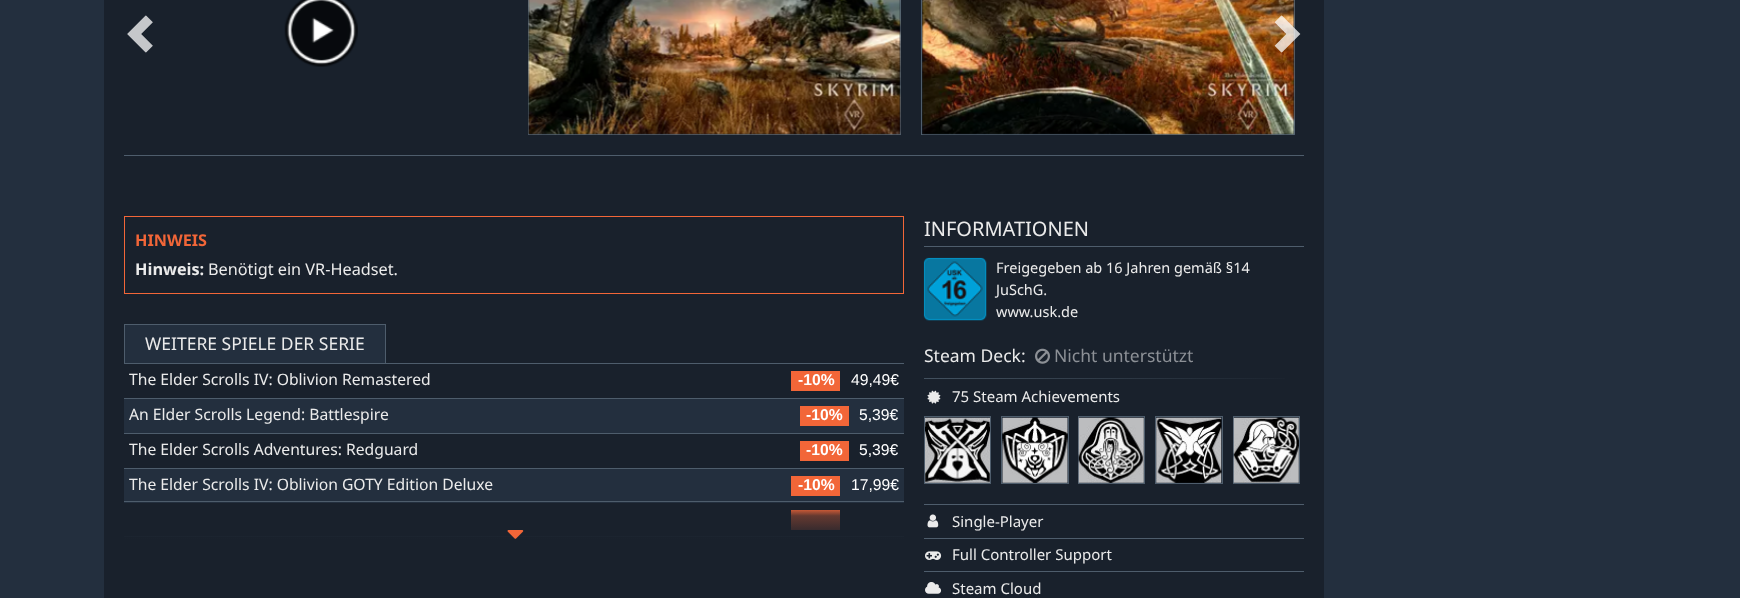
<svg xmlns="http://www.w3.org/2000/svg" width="1740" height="598">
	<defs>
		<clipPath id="clip1"><rect x="124" y="324" width="780" height="39" /></clipPath>
		<linearGradient id="g1" gradientUnits="userSpaceOnUse" x1="514" y1="507" x2="514" y2="551"><stop offset="0" stop-color="#19212C" stop-opacity="0" /><stop offset="0.01" stop-color="#19212C" stop-opacity="0" /><stop offset="0.2" stop-color="#19212C" stop-opacity="0.65" /><stop offset="0.75" stop-color="#19212C" /></linearGradient>
		<linearGradient id="g2" gradientUnits="userSpaceOnUse" x1="924" y1="378" x2="1304" y2="378"><stop offset="0" stop-color="#43515F" /><stop offset="1" stop-color="#19212C" /></linearGradient>
	</defs>
	<rect width="100%" height="100%" fill="#232F3E" />
	<rect x="104" y="0" width="1220" height="598" fill="#19212C" />
	<rect x="124" y="155" width="1180" height="1" fill="#4E5D6C" />
	<image x="127" y="15" width="26" height="38" href="assets/img1.png" />
	<image x="284" y="0" width="74" height="67" href="assets/img2.png" />
	<rect x="528.5" y="-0.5" width="372" height="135" fill="none" stroke="#4E5D6C" />
	<image x="528" y="0" width="373" height="135" href="assets/img3.png" />
	<rect x="921.5" y="-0.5" width="373" height="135" fill="none" stroke="#4E5D6C" />
	<image x="922" y="0" width="373" height="135" href="assets/img4.png" />
	<image x="1274" y="15" width="27" height="38" href="assets/img5.png" />
	<rect x="124.5" y="216.5" width="779" height="77" fill="none" stroke="#F26638" />
	<text x="135" y="246" font-family="Noto Sans" font-size="16.25" font-weight="700" fill="#F26638">HINWEIS</text>
	<text x="135" y="275" font-family="Noto Sans" font-size="16.25" font-weight="700" fill="#EBEBEB">Hinweis:</text>
	<text x="208" y="275" font-family="Noto Sans" font-size="16.25" fill="#EBEBEB">Benötigt ein VR-Headset.</text>
	<rect x="124" y="363" width="780" height="1" fill="#4E5D6C" />
	<rect x="125" y="325" width="260" height="38" fill="#232F3E" />
	<g clip-path="url(#clip1)">
		<rect x="124.5" y="324.5" width="261" height="39" fill="none" stroke="#4E5D6C" />
	</g>
	<text x="145" y="350" font-family="Noto Sans" font-size="17.5" fill="#EBEBEB">WEITERE SPIELE DER SERIE</text>
	<rect x="124" y="398" width="780" height="1" fill="#4E5D6C" />
	<text x="129" y="385" font-family="Noto Sans" font-size="15.7" fill="#EBEBEB">The Elder Scrolls IV: Oblivion Remastered</text>
	<rect x="791" y="371" width="49" height="20" fill="#F26638" />
	<text x="798" y="385" font-family="Liberation Sans" font-size="15.7" font-weight="700" fill="#FFFFFF">-10%</text>
	<text x="851" y="385" font-family="Liberation Sans" font-size="15.7" fill="#FFFFFF">49,49€</text>
	<rect x="124" y="399" width="780" height="34" fill="#232F3E" />
	<rect x="124" y="433" width="780" height="1" fill="#4E5D6C" />
	<text x="129" y="420" font-family="Noto Sans" font-size="15.7" fill="#EBEBEB">An Elder Scrolls Legend: Battlespire</text>
	<rect x="800" y="406" width="49" height="20" fill="#F26638" />
	<text x="806" y="420" font-family="Liberation Sans" font-size="15.7" font-weight="700" fill="#FFFFFF">-10%</text>
	<text x="859" y="420" font-family="Liberation Sans" font-size="15.7" fill="#FFFFFF">5,39€</text>
	<rect x="124" y="468" width="780" height="1" fill="#4E5D6C" />
	<text x="129" y="455" font-family="Noto Sans" font-size="15.7" fill="#EBEBEB">The Elder Scrolls Adventures: Redguard</text>
	<rect x="800" y="441" width="49" height="20" fill="#F26638" />
	<text x="806" y="455" font-family="Liberation Sans" font-size="15.7" font-weight="700" fill="#FFFFFF">-10%</text>
	<text x="859" y="455" font-family="Liberation Sans" font-size="15.7" fill="#FFFFFF">5,39€</text>
	<rect x="124" y="469" width="780" height="34" fill="#232F3E" />
	<rect x="124" y="501" width="780" height="1" fill="#4E5D6C" />
	<text x="129" y="490" font-family="Noto Sans" font-size="15.7" fill="#EBEBEB">The Elder Scrolls IV: Oblivion GOTY Edition Deluxe</text>
	<rect x="791" y="476" width="49" height="20" fill="#F26638" />
	<text x="798" y="490" font-family="Liberation Sans" font-size="15.7" font-weight="700" fill="#FFFFFF">-10%</text>
	<text x="851" y="490" font-family="Liberation Sans" font-size="15.7" fill="#FFFFFF">17,99€</text>
	<rect x="124" y="536" width="780" height="1" fill="#4E5D6C" />
	<rect x="791" y="510" width="49" height="20" fill="#F26638" />
	<rect x="124" y="538" width="780" height="2" fill="#232F3E" />
	<rect x="124" y="510" width="780" height="30" fill="url(#g1)" />
	<image x="507" y="530" width="17" height="9" href="assets/img6.png" />
	<rect x="924" y="246" width="380" height="1" fill="#4E5D6C" />
	<text x="924" y="236" font-family="Noto Sans" font-size="20" fill="#EBEBEB">INFORMATIONEN</text>
	<image x="923" y="257" width="64" height="64" href="assets/img7.png" />
	<g font-family="Noto Sans" font-size="14.5" fill="#EBEBEB">
		<text x="996" y="273">Freigegeben ab 16 Jahren gemäß §14</text>
		<text x="996" y="295">JuSchG.</text>
		<text x="996" y="317">www.usk.de</text>
	</g>
	<text x="924" y="362" font-family="Noto Sans" font-size="17.5" fill="#EBEBEB">Steam Deck:</text>
	<image x="1035" y="348" width="15" height="16" href="assets/img8.png" />
	<text x="1054" y="362" font-family="Noto Sans" font-size="17.5" fill="#8C9096">Nicht unterstützt</text>
	<rect x="924" y="378" width="361" height="1" fill="url(#g2)" />
	<image x="927" y="390" width="14" height="14" href="assets/img9.png" />
	<text x="952" y="402" font-family="Noto Sans" font-size="15" fill="#EBEBEB">75 Steam Achievements</text>
	<rect x="924.5" y="416.5" width="66" height="67" fill="none" stroke="#4E5D6C" />
	<rect x="1001.5" y="416.5" width="67" height="67" fill="none" stroke="#4E5D6C" />
	<rect x="1078.5" y="416.5" width="66" height="67" fill="none" stroke="#4E5D6C" />
	<rect x="1155.5" y="416.5" width="67" height="67" fill="none" stroke="#4E5D6C" />
	<rect x="1233.5" y="416.5" width="66" height="67" fill="none" stroke="#4E5D6C" />
	<image x="925" y="417" width="65" height="66" href="assets/img10.png" />
	<image x="1002" y="417" width="66" height="66" href="assets/img11.png" />
	<image x="1078" y="417" width="66" height="66" href="assets/img12.png" />
	<image x="1156" y="417" width="66" height="66" href="assets/img13.png" />
	<image x="1233" y="417" width="66" height="66" href="assets/img14.png" />
	<rect x="924" y="504" width="380" height="1" fill="#4E5D6C" />
	<image x="927" y="514" width="12" height="14" href="assets/img15.png" />
	<text x="952" y="527" font-family="Noto Sans" font-size="15" fill="#EBEBEB">Single-Player</text>
	<rect x="924" y="538" width="380" height="1" fill="#4E5D6C" />
	<image x="925" y="551" width="17" height="9" href="assets/img16.png" />
	<text x="952" y="560" font-family="Noto Sans" font-size="15" fill="#EBEBEB">Full Controller Support</text>
	<rect x="924" y="571" width="380" height="1" fill="#4E5D6C" />
	<image x="925" y="582" width="17" height="12" href="assets/img17.png" />
	<text x="952" y="594" font-family="Noto Sans" font-size="15" fill="#EBEBEB">Steam Cloud</text>
</svg>
